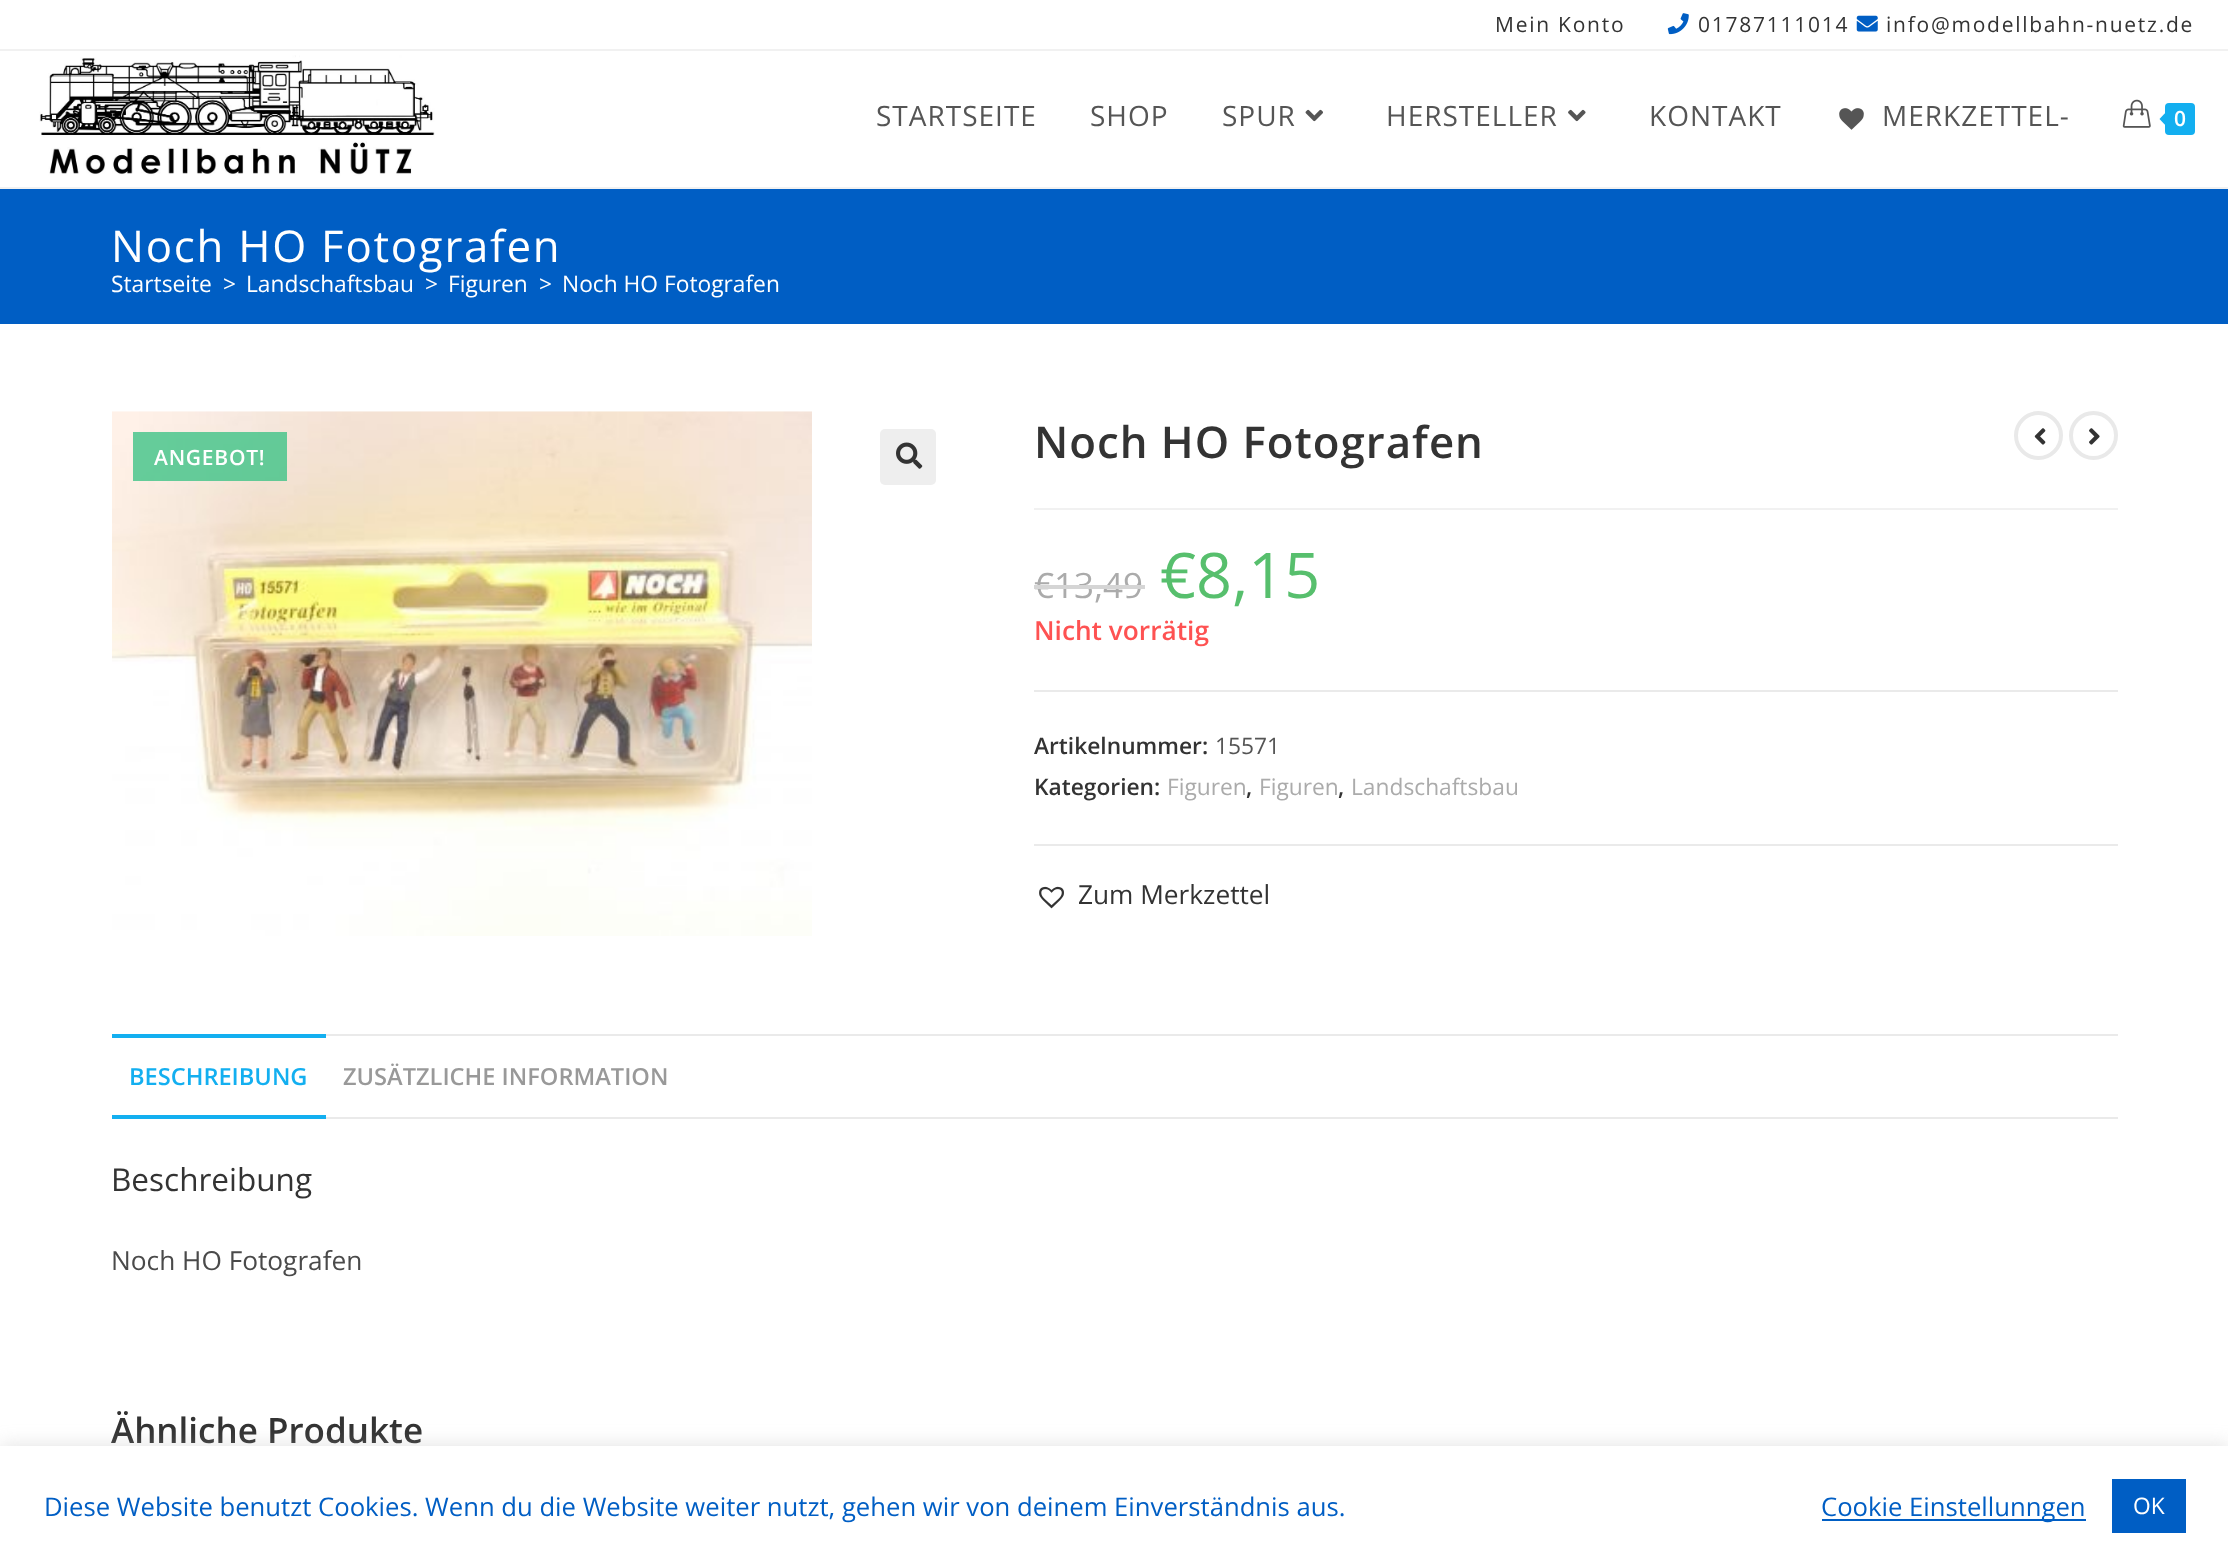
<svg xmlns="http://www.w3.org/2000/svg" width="2228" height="1566">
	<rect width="100%" height="100%" fill="#FFFFFF" />
	<rect x="0" y="49" width="2228" height="2" fill="#F1F1F1" />
	<text x="1495" y="32" font-family="Open Sans" font-size="21" letter-spacing="1.75" fill="#333333">Mein Konto</text>
	<image x="1667" y="13" width="22" height="22" href="assets/img1.png" />
	<text x="1698" y="32" font-family="Open Sans" font-size="21" letter-spacing="1.75" fill="#333333">01787111014</text>
	<image x="1856" y="15" width="22" height="17" href="assets/img2.png" />
	<text x="1886" y="32" font-family="Open Sans" font-size="21" letter-spacing="1.75" fill="#333333">info@modellbahn-nuetz.de</text>
	<rect x="0" y="187" width="2228" height="2" fill="#F1F1F1" />
	<image x="39" y="55" width="396" height="121" href="assets/img3.png" />
	<g font-family="Open Sans" font-size="28" letter-spacing="1" fill="#555555">
		<text x="876" y="126">STARTSEITE</text>
		<text x="1090" y="126">SHOP</text>
		<text x="1222" y="126">SPUR</text>
	</g>
	<image x="1305" y="109" width="18" height="13" href="assets/img4.png" />
	<text x="1386" y="126" font-family="Open Sans" font-size="28" letter-spacing="1" fill="#555555">HERSTELLER</text>
	<image x="1568" y="109" width="18" height="13" href="assets/img5.png" />
	<text x="1649" y="126" font-family="Open Sans" font-size="28" letter-spacing="1" fill="#555555">KONTAKT</text>
	<image x="1839" y="108" width="25" height="22" href="assets/img6.png" />
	<text x="1882" y="126" font-family="Open Sans" font-size="28" letter-spacing="1" fill="#555555">MERKZETTEL-</text>
	<image x="2122" y="99" width="29" height="29" href="assets/img7.png" />
	<rect x="2165" y="103" width="30" height="32" rx="4" fill="#13AFF0" />
	<path d="M2168 110V128L2159.5 119Z" fill="#13AFF0" />
	<text x="2174" y="126" font-family="Open Sans" font-size="21" font-weight="600" fill="#FFFFFF">0</text>
	<rect x="0" y="189" width="2228" height="135" fill="#005EC4" />
	<text x="111" y="262" font-family="Open Sans" font-size="43.75" letter-spacing="1.75" fill="#FFFFFF">Noch HO Fotografen</text>
	<g font-family="Open Sans" font-size="22.75" fill="#FFFFFF">
		<text x="111" y="292">Startseite</text>
		<text x="223" y="292">&gt;</text>
		<text x="246" y="292">Landschaftsbau</text>
		<text x="425" y="292">&gt;</text>
		<text x="448" y="292">Figuren</text>
		<text x="539" y="292">&gt;</text>
		<text x="562" y="292">Noch HO Fotografen</text>
	</g>
	<image x="112" y="411" width="700" height="525" href="assets/img8.png" />
	<rect x="880" y="429" width="56" height="56" rx="5" fill="#EEEEEE" />
	<image x="896" y="442" width="27" height="27" href="assets/img9.png" />
	<rect x="1034" y="508" width="1084" height="2" fill="#F1F1F1" />
	<text x="1034" y="458" font-family="Open Sans" font-size="43.75" font-weight="600" letter-spacing="1" fill="#333333">Noch HO Fotografen</text>
	<text x="1034" y="598" font-family="Open Sans" font-size="35" fill="#ABABAB">€13,49</text>
	<rect x="1034" y="585" width="111" height="4" fill="#D5D5D5" />
	<text x="1160" y="598" font-family="Open Sans" font-size="63" fill="#57BF6D">€8,15</text>
	<text x="1034" y="640" font-family="Open Sans" font-size="26.25" font-weight="600" fill="#FE5252">Nicht vorrätig</text>
	<rect x="1034" y="690" width="1084" height="2" fill="#EAEAEA" />
	<rect x="1034" y="844" width="1084" height="2" fill="#EAEAEA" />
	<text x="1034" y="754" font-family="Open Sans" font-size="22.75" font-weight="600" fill="#333333">Artikelnummer:</text>
	<text x="1215" y="754" font-family="Open Sans" font-size="22.75" fill="#555555">15571</text>
	<text x="1034" y="795" font-family="Open Sans" font-size="22.75" font-weight="600" fill="#333333">Kategorien:</text>
	<text x="1167" y="795" font-family="Open Sans" font-size="22.75" fill="#ABABAB">Figuren</text>
	<text x="1246" y="795" font-family="Open Sans" font-size="22.75" font-weight="600" fill="#333333">,</text>
	<text x="1259" y="795" font-family="Open Sans" font-size="22.75" fill="#ABABAB">Figuren</text>
	<text x="1338" y="795" font-family="Open Sans" font-size="22.75" font-weight="600" fill="#333333">,</text>
	<text x="1351" y="795" font-family="Open Sans" font-size="22.75" fill="#ABABAB">Landschaftsbau</text>
	<image x="1039" y="886" width="25" height="23" href="assets/img10.png" />
	<text x="1078" y="904" font-family="Open Sans" font-size="26.25" fill="#333333">Zum Merkzettel</text>
	<circle cx="2038.5" cy="435.5" r="22.5" fill="none" stroke="#E9E9E9" stroke-width="4" />
	<image x="2034" y="428" width="12" height="17" href="assets/img11.png" />
	<circle cx="2093.5" cy="435.5" r="22.5" fill="none" stroke="#E9E9E9" stroke-width="4" />
	<image x="2089" y="428" width="11" height="17" href="assets/img12.png" />
	<rect x="133" y="432" width="154" height="49" fill="#3FC387" fill-opacity="0.8" />
	<text x="154" y="465" font-family="Open Sans" font-size="21" font-weight="600" letter-spacing="0.75" fill="#FFFFFF">ANGEBOT!</text>
	<rect x="326" y="1034" width="1792" height="2" fill="#EAEAEA" />
	<rect x="326" y="1117" width="1792" height="2" fill="#EAEAEA" />
	<rect x="112" y="1034" width="214" height="4" fill="#13AFF0" />
	<rect x="112" y="1115" width="214" height="4" fill="#13AFF0" />
	<text x="129" y="1085" font-family="Open Sans" font-size="23.6" font-weight="600" fill="#13AFF0">BESCHREIBUNG</text>
	<text x="343" y="1085" font-family="Open Sans" font-size="23.6" font-weight="600" fill="#999999">ZUSÄTZLICHE INFORMATION</text>
	<text x="111" y="1191" font-family="Open Sans" font-size="31.5" fill="#333333">Beschreibung</text>
	<text x="111" y="1270" font-family="Open Sans" font-size="26.25" fill="#4A4A4A">Noch HO Fotografen</text>
	<text x="111" y="1443" font-family="Open Sans" font-size="35" font-weight="600" fill="#333333">Ähnliche Produkte</text>
	<rect x="0" y="1444" width="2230" height="121" fill="#ACABAB" fill-opacity="0.3" filter="blur(9px)" />
	<rect x="0" y="1446" width="2228" height="120" fill="#FFFFFF" />
	<text x="44" y="1516" font-family="Open Sans" font-size="25.67" fill="#005EC4">Diese Website benutzt Cookies. Wenn du die Website weiter nutzt, gehen wir von deinem Einverständnis aus.</text>
	<rect x="1822" y="1519" width="264" height="2" fill="#005EC4" />
	<text x="1821" y="1516" font-family="Open Sans" font-size="25.67" fill="#005EC4">Cookie Einstellunngen</text>
	<rect x="2112" y="1479" width="74" height="54" fill="#005EC4" />
	<text x="2133" y="1514" font-family="Open Sans" font-size="22.75" fill="#FFFFFF">OK</text>
</svg>
